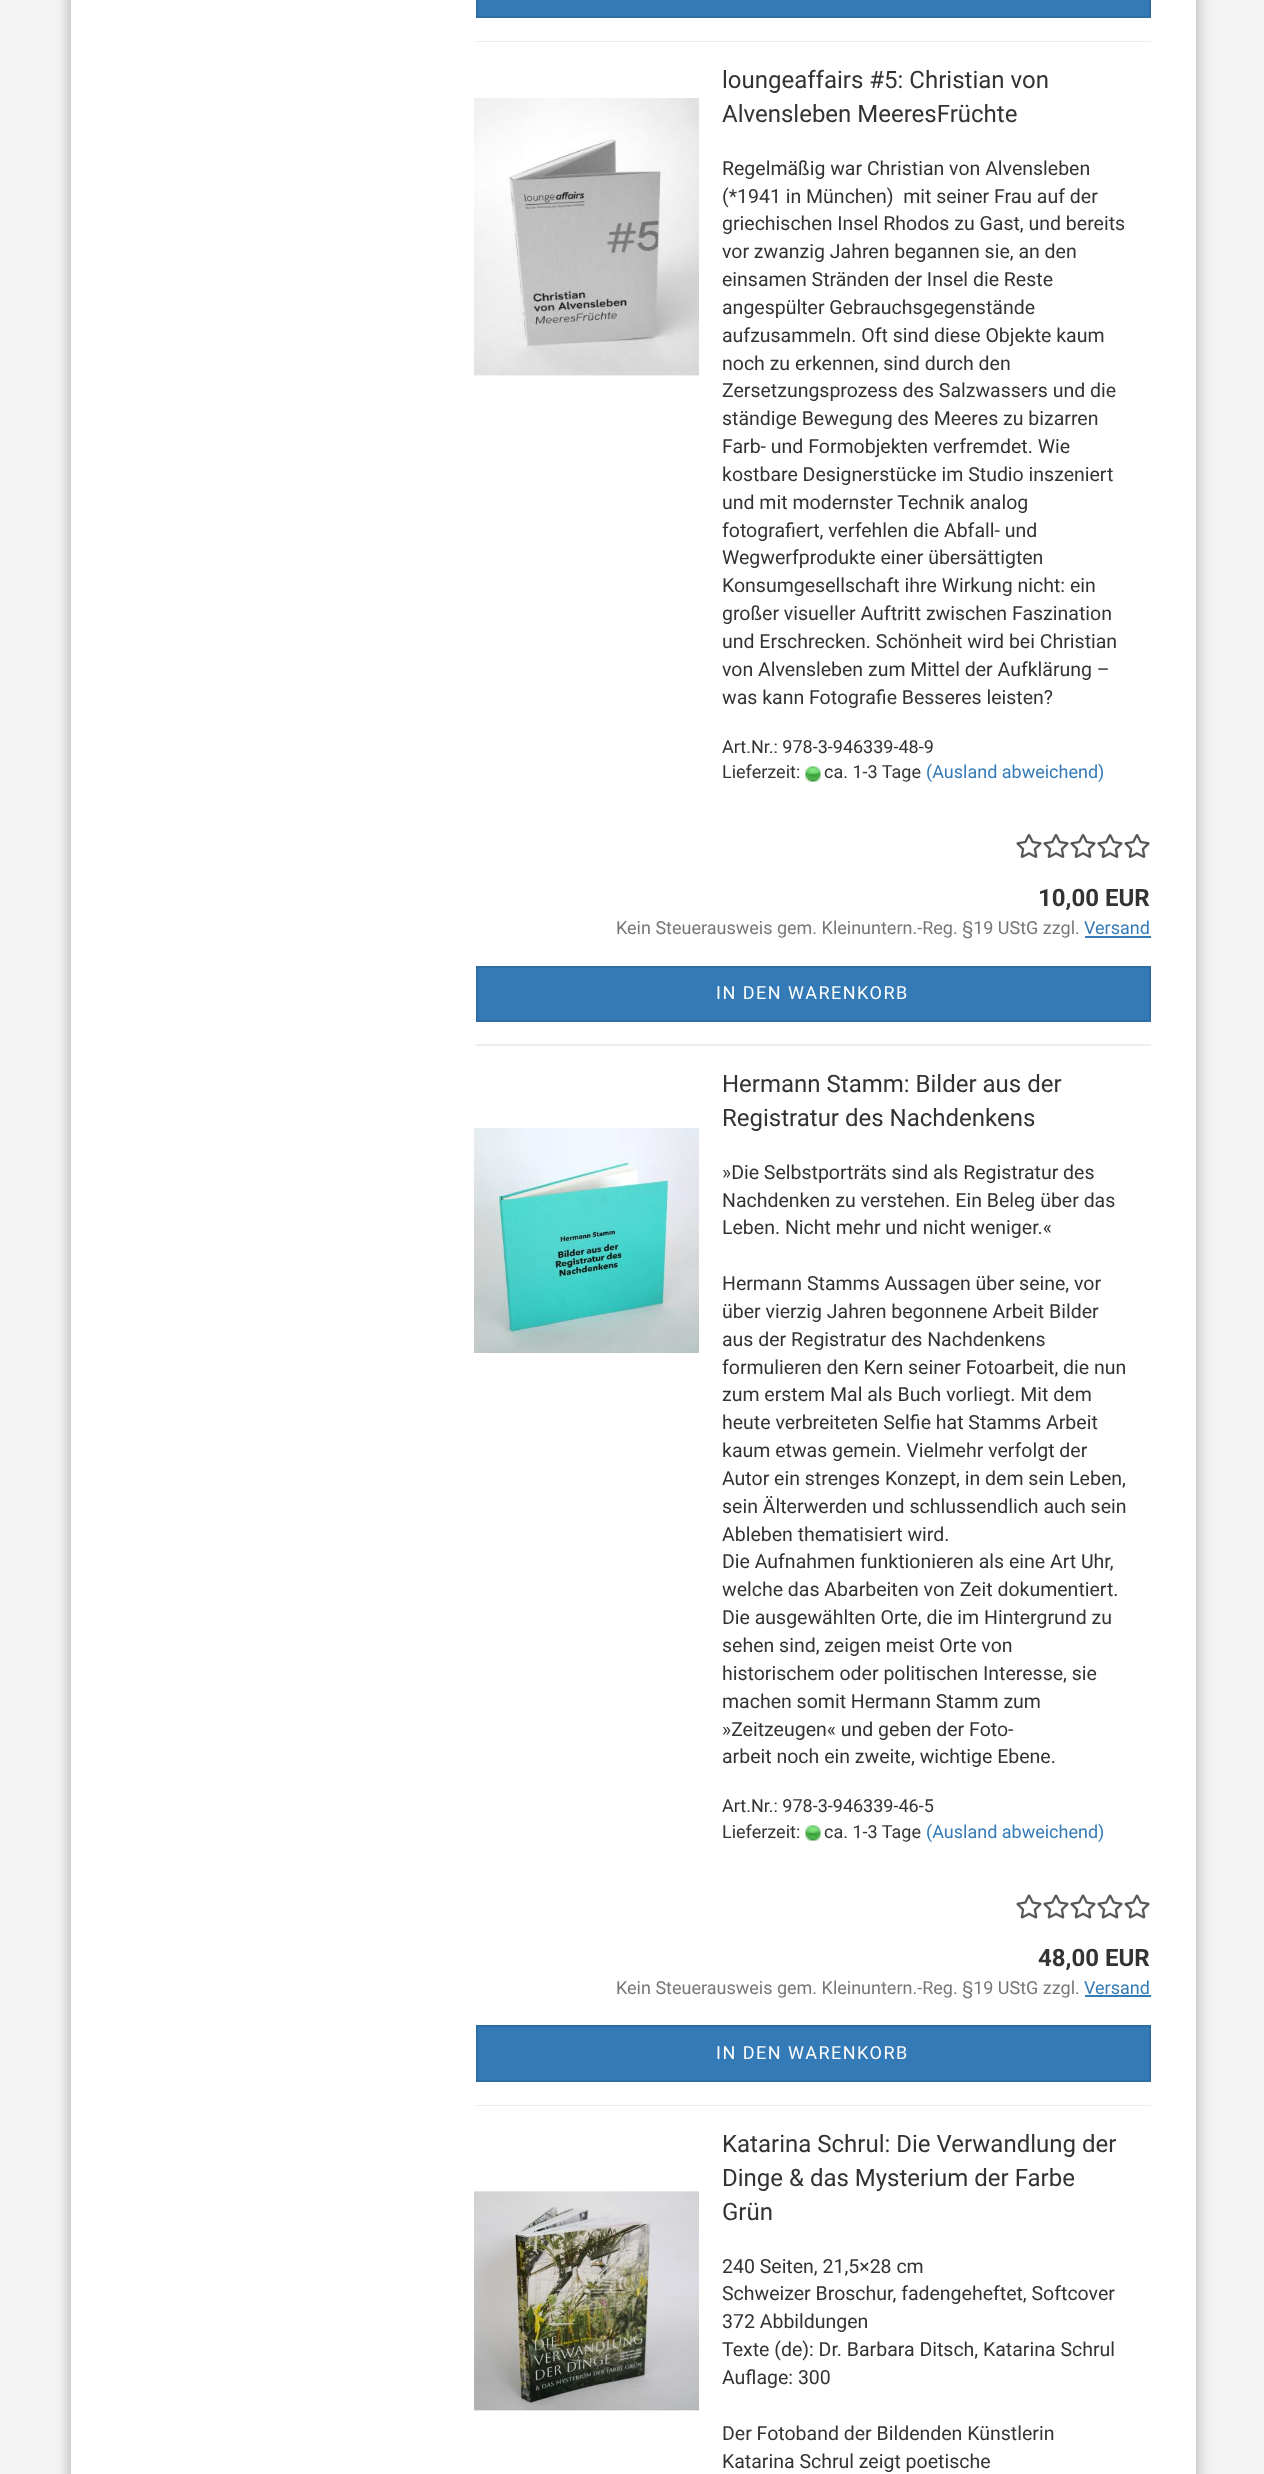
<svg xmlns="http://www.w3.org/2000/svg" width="1264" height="2474">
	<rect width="100%" height="100%" fill="#F3F3F3" />
	<rect x="71" y="-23" width="1125" height="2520" fill="#000000" fill-opacity="0.3" filter="blur(7.5px)" />
	<rect x="71" y="0" width="1125" height="2474" fill="#FFFFFF" />
	<rect x="476" y="41" width="675" height="1" fill="#EEEEEE" />
	<rect x="477" y="-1" width="673" height="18" fill="#337AB7" stroke="#2D6DA3" stroke-width="2" />
	<rect x="476" y="1044" width="675" height="2" fill="#EEEEEE" />
	<image x="474" y="98" width="225" height="278" href="assets/img1.png" />
	<g font-family="Roboto" font-size="24" fill="#333333">
		<text x="722" y="88">loungeaffairs #5: Christian von</text>
		<text x="722" y="122">Alvensleben MeeresFrüchte</text>
	</g>
	<g font-family="Roboto" font-size="19.5" fill="#333333">
		<text x="722" y="175">Regelmäßig war Christian von Alvensleben</text>
		<text x="722" y="203" xml:space="preserve">(*1941 in München)  mit seiner Frau auf der</text>
		<text x="722" y="230">griechischen Insel Rhodos zu Gast, und bereits</text>
		<text x="722" y="258">vor zwanzig Jahren begannen sie, an den</text>
		<text x="722" y="286">einsamen Stränden der Insel die Reste</text>
		<text x="722" y="314">angespülter Gebrauchsgegenstände</text>
		<text x="722" y="342">aufzusammeln. Oft sind diese Objekte kaum</text>
		<text x="722" y="370">noch zu erkennen, sind durch den</text>
		<text x="722" y="397">Zersetzungsprozess des Salzwassers und die</text>
		<text x="722" y="425">ständige Bewegung des Meeres zu bizarren</text>
		<text x="722" y="453">Farb- und Formobjekten verfremdet. Wie</text>
		<text x="722" y="481">kostbare Designerstücke im Studio inszeniert</text>
		<text x="722" y="509">und mit modernster Technik analog</text>
		<text x="722" y="537">fotografiert, verfehlen die Abfall- und</text>
		<text x="722" y="564">Wegwerfprodukte einer übersättigten</text>
		<text x="722" y="592">Konsumgesellschaft ihre Wirkung nicht: ein</text>
		<text x="722" y="620">großer visueller Auftritt zwischen Faszination</text>
		<text x="722" y="648">und Erschrecken. Schönheit wird bei Christian</text>
		<text x="722" y="676">von Alvensleben zum Mittel der Aufklärung –</text>
		<text x="722" y="704">was kann Fotografie Besseres leisten?</text>
	</g>
	<g font-family="Roboto" font-size="18" fill="#333333">
		<text x="722" y="753">Art.Nr.: 978-3-946339-48-9</text>
		<text x="722" y="778">Lieferzeit:</text>
	</g>
	<image x="805" y="766" width="16" height="16" href="assets/img2.png" />
	<text x="824" y="778" font-family="Roboto" font-size="18" fill="#333333">ca. 1-3 Tage</text>
	<text x="926" y="778" font-family="Roboto" font-size="18" fill="#337AB7">(Ausland abweichend)</text>
	<image x="1016" y="834" width="26" height="24" href="assets/img3.png" />
	<image x="1043" y="834" width="26" height="24" href="assets/img3.png" />
	<image x="1070" y="834" width="26" height="24" href="assets/img3.png" />
	<image x="1097" y="834" width="26" height="24" href="assets/img3.png" />
	<image x="1124" y="834" width="26" height="24" href="assets/img3.png" />
	<text x="1038" y="906" font-family="Roboto" font-size="24" font-weight="700" fill="#333333">10,00 EUR</text>
	<text x="616" y="934" font-family="Roboto" font-size="18" fill="#777777">Kein Steuerausweis gem. Kleinuntern.-Reg. §19 UStG zzgl.</text>
	<text x="1084" y="934" font-family="Roboto" font-size="18" fill="#337AB7">Versand</text>
	<rect x="1085" y="936" width="66" height="2" fill="#337AB7" />
	<rect x="477" y="967" width="673" height="54" fill="#337AB7" stroke="#2D6DA3" stroke-width="2" />
	<text x="716" y="999" font-family="Roboto" font-size="18" letter-spacing="1.5" fill="#FFFFFF">IN DEN WARENKORB</text>
	<rect x="476" y="2105" width="675" height="1" fill="#EEEEEE" />
	<image x="474" y="1128" width="225" height="225" href="assets/img4.png" />
	<g font-family="Roboto" font-size="24" fill="#333333">
		<text x="722" y="1092">Hermann Stamm: Bilder aus der</text>
		<text x="722" y="1126">Registratur des Nachdenkens</text>
	</g>
	<g font-family="Roboto" font-size="19.5" fill="#333333">
		<text x="722" y="1179">»Die Selbstporträts sind als Registratur des</text>
		<text x="722" y="1207">Nachdenken zu verstehen. Ein Beleg über das</text>
		<text x="722" y="1234">Leben. Nicht mehr und nicht weniger.«</text>
		<text x="722" y="1290">Hermann Stamms Aussagen über seine, vor</text>
		<text x="722" y="1318">über vierzig Jahren begonnene Arbeit Bilder</text>
		<text x="722" y="1346">aus der Registratur des Nachdenkens</text>
		<text x="722" y="1374">formulieren den Kern seiner Fotoarbeit, die nun</text>
		<text x="722" y="1401">zum erstem Mal als Buch vorliegt. Mit dem</text>
		<text x="722" y="1429">heute verbreiteten Selfie hat Stamms Arbeit</text>
		<text x="722" y="1457">kaum etwas gemein. Vielmehr verfolgt der</text>
		<text x="722" y="1485">Autor ein strenges Konzept, in dem sein Leben,</text>
		<text x="722" y="1513">sein Älterwerden und schlussendlich auch sein</text>
		<text x="722" y="1541">Ableben thematisiert wird.</text>
		<text x="722" y="1568">Die Aufnahmen funktionieren als eine Art Uhr,</text>
		<text x="722" y="1596">welche das Abarbeiten von Zeit dokumentiert.</text>
		<text x="722" y="1624">Die ausgewählten Orte, die im Hintergrund zu</text>
		<text x="722" y="1652">sehen sind, zeigen meist Orte von</text>
		<text x="722" y="1680">historischem oder politischen Interesse, sie</text>
		<text x="722" y="1708">machen somit Hermann Stamm zum</text>
		<text x="722" y="1736">»Zeitzeugen« und geben der Foto-</text>
		<text x="722" y="1763">arbeit noch ein zweite, wichtige Ebene.</text>
	</g>
	<g font-family="Roboto" font-size="18" fill="#333333">
		<text x="722" y="1812">Art.Nr.: 978-3-946339-46-5</text>
		<text x="722" y="1838">Lieferzeit:</text>
	</g>
	<image x="805" y="1825" width="16" height="16" href="assets/img2.png" />
	<text x="824" y="1838" font-family="Roboto" font-size="18" fill="#333333">ca. 1-3 Tage</text>
	<text x="926" y="1838" font-family="Roboto" font-size="18" fill="#337AB7">(Ausland abweichend)</text>
	<image x="1016" y="1894" width="26" height="25" href="assets/img5.png" />
	<image x="1043" y="1894" width="26" height="25" href="assets/img5.png" />
	<image x="1070" y="1894" width="26" height="25" href="assets/img5.png" />
	<image x="1097" y="1894" width="26" height="25" href="assets/img5.png" />
	<image x="1124" y="1894" width="26" height="25" href="assets/img5.png" />
	<text x="1038" y="1966" font-family="Roboto" font-size="24" font-weight="700" fill="#333333">48,00 EUR</text>
	<text x="616" y="1994" font-family="Roboto" font-size="18" fill="#777777">Kein Steuerausweis gem. Kleinuntern.-Reg. §19 UStG zzgl.</text>
	<text x="1084" y="1994" font-family="Roboto" font-size="18" fill="#337AB7">Versand</text>
	<rect x="1085" y="1995" width="66" height="2" fill="#337AB7" />
	<rect x="477" y="2026" width="673" height="55" fill="#337AB7" stroke="#2D6DA3" stroke-width="2" />
	<text x="716" y="2059" font-family="Roboto" font-size="18" letter-spacing="1.5" fill="#FFFFFF">IN DEN WARENKORB</text>
	<image x="474" y="2191" width="225" height="220" href="assets/img6.png" />
	<g font-family="Roboto" font-size="24" fill="#333333">
		<text x="722" y="2152">Katarina Schrul: Die Verwandlung der</text>
		<text x="722" y="2186">Dinge &amp; das Mysterium der Farbe</text>
		<text x="722" y="2220">Grün</text>
	</g>
	<g font-family="Roboto" font-size="19.5" fill="#333333">
		<text x="722" y="2273">240 Seiten, 21,5×28 cm</text>
		<text x="722" y="2300">Schweizer Broschur, fadengeheftet, Softcover</text>
		<text x="722" y="2328">372 Abbildungen</text>
		<text x="722" y="2356">Texte (de): Dr. Barbara Ditsch, Katarina Schrul</text>
		<text x="722" y="2384">Auflage: 300</text>
		<text x="722" y="2440">Der Fotoband der Bildenden Künstlerin</text>
		<text x="722" y="2468">Katarina Schrul zeigt poetische</text>
	</g>
</svg>
